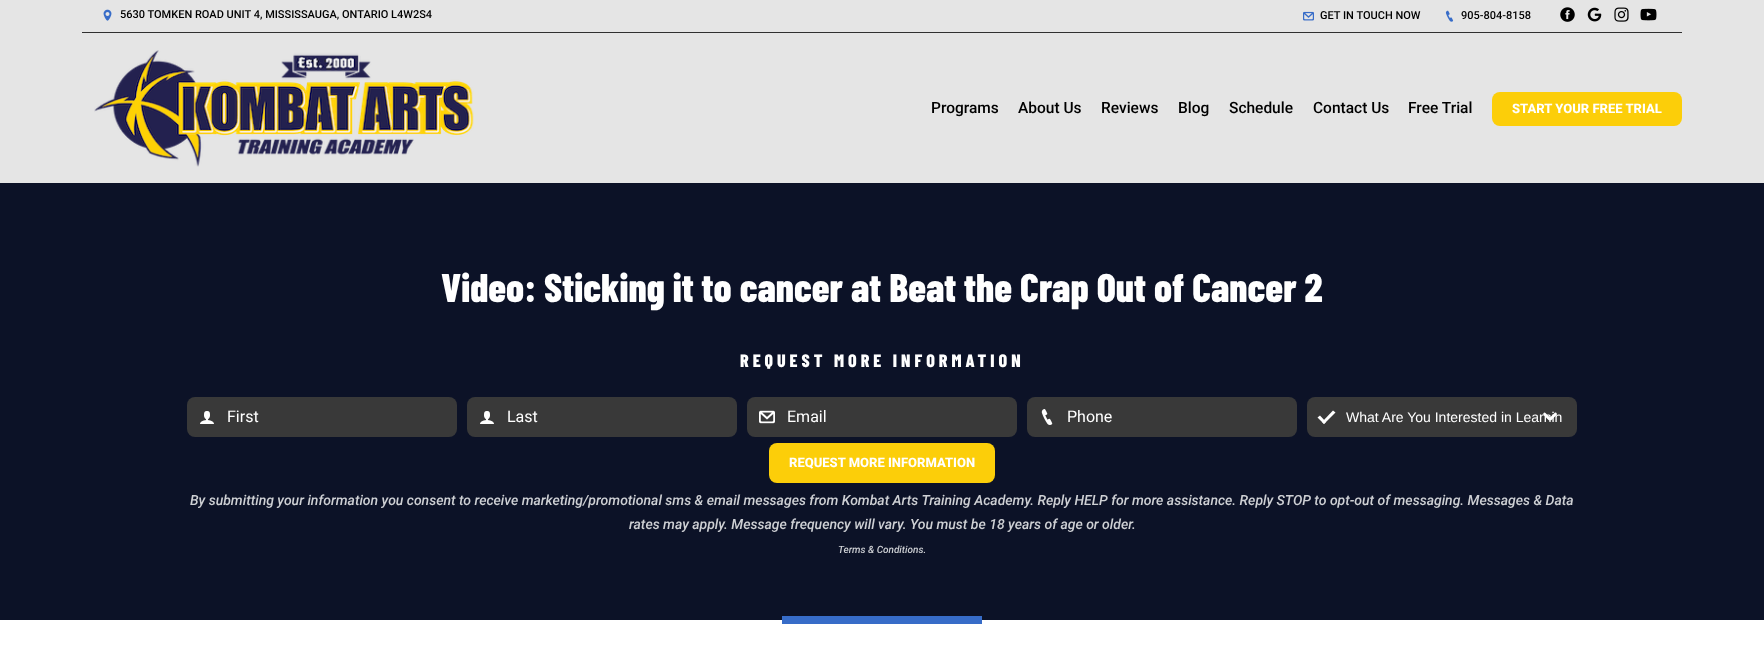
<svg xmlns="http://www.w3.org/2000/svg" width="1764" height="668">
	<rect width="100%" height="100%" fill="#FFFFFF" />
	<rect x="0" y="0" width="1764" height="183" fill="#E5E5E5" />
	<rect x="82" y="32" width="1600" height="1" fill="#303030" />
	<image x="103" y="9" width="9" height="12" href="assets/img1.png" />
	<text x="120" y="18" font-family="Roboto" font-size="11" font-weight="500" fill="#000000">5630 TOMKEN ROAD UNIT 4, MISSISSAUGA, ONTARIO L4W2S4</text>
	<image x="1303" y="11" width="11" height="10" href="assets/img2.png" />
	<text x="1320" y="19" font-family="Roboto" font-size="11" font-weight="500" fill="#000000">GET IN TOUCH NOW</text>
	<image x="1445" y="10" width="9" height="12" href="assets/img3.png" />
	<text x="1461" y="19" font-family="Roboto" font-size="11" font-weight="500" fill="#000000">905-804-8158</text>
	<image x="1560" y="7" width="15" height="15" href="assets/img4.png" />
	<image x="1587" y="7" width="15" height="15" href="assets/img5.png" />
	<image x="1614" y="7" width="15" height="15" href="assets/img6.png" />
	<image x="1640" y="8" width="17" height="13" href="assets/img7.png" />
	<image x="94" y="50" width="380" height="117" href="assets/img8.png" />
	<g font-family="Roboto" font-size="15.5" font-weight="500" fill="#000000">
		<text x="931" y="113">Programs</text>
		<text x="1018" y="113">About Us</text>
		<text x="1101" y="113">Reviews</text>
		<text x="1178" y="113">Blog</text>
		<text x="1229" y="113">Schedule</text>
		<text x="1313" y="113">Contact Us</text>
		<text x="1408" y="113">Free Trial</text>
	</g>
	<rect x="1492" y="92" width="190" height="34" rx="8" fill="#FCCE09" />
	<text x="1512" y="113" font-family="Roboto" font-size="13" font-weight="800" fill="#FFFFFF">START YOUR FREE TRIAL</text>
	<rect x="0" y="183" width="1764" height="437" fill="#0C1227" />
	<text x="441" y="302" font-family="Barlow Condensed" font-size="40" font-weight="800" fill="#FFFFFF">Video: Sticking it to cancer at Beat the Crap Out of Cancer 2</text>
	<text x="740" y="367" font-family="Barlow Condensed" font-size="18" font-weight="800" letter-spacing="4" fill="#FFFFFF">REQUEST MORE INFORMATION</text>
	<rect x="187" y="397" width="270" height="40" rx="8" fill="#393939" />
	<image x="200" y="411" width="14" height="13" href="assets/img9.png" />
	<text x="227" y="422" font-family="Roboto" font-size="16" fill="#FFFFFF">First</text>
	<rect x="467" y="397" width="270" height="40" rx="8" fill="#393939" />
	<image x="480" y="411" width="14" height="13" href="assets/img9.png" />
	<text x="507" y="422" font-family="Roboto" font-size="16" fill="#FFFFFF">Last</text>
	<rect x="747" y="397" width="270" height="40" rx="8" fill="#393939" />
	<image x="759" y="410" width="16" height="14" href="assets/img10.png" />
	<text x="787" y="422" font-family="Roboto" font-size="16" fill="#FFFFFF">Email</text>
	<rect x="1027" y="397" width="270" height="40" rx="8" fill="#393939" />
	<image x="1041" y="409" width="12" height="16" href="assets/img11.png" />
	<text x="1067" y="422" font-family="Roboto" font-size="16" fill="#FFFFFF">Phone</text>
	<rect x="1307" y="397" width="270" height="40" rx="8" fill="#393939" />
	<path d="M1317.5 417.5L1320 415.5L1326 422L1324 424Z" fill="#FFFFFF" />
	<path d="M1322 422L1333 410.5L1335.5 412.5L1324 424Z" fill="#FFFFFF" />
	<text x="1346" y="422" font-family="Liberation Sans" font-size="14" fill="#FFFFFF">What Are You Interested in Learnin</text>
	<path d="M1545.5 413L1551 418.5C1551.5 420 1549.5 421 1548.5 420L1543.5 415C1542.5 413.5 1544.5 411.5 1545.5 413Z" fill="#FFFFFF" />
	<path d="M1549.5 418L1555 412.5C1556.5 412 1557.5 414 1556.5 415L1551.5 420C1550 421 1548 419 1549.5 418Z" fill="#FFFFFF" />
	<rect x="769" y="443" width="226" height="40" rx="8" fill="#FCCE09" />
	<text x="789" y="467" font-family="Roboto" font-size="13" font-weight="800" fill="#FFFFFF">REQUEST MORE INFORMATION</text>
	<g font-family="Roboto" font-size="14" font-weight="500" font-style="italic" fill="#CED0D4">
		<text x="190" y="505">By submitting your information you consent to receive marketing/promotional sms &amp; email messages from Kombat Arts Training Academy. Reply HELP for more assistance. Reply STOP to opt-out of messaging. Messages &amp; Data</text>
		<text x="629" y="529">rates may apply. Message frequency will vary. You must be 18 years of age or older.</text>
	</g>
	<text x="838" y="553" font-family="Roboto" font-size="10" font-weight="500" font-style="italic" fill="#CED0D4">Terms &amp; Conditions.</text>
	<rect x="782" y="616" width="200" height="8" fill="#376CC8" />
</svg>
